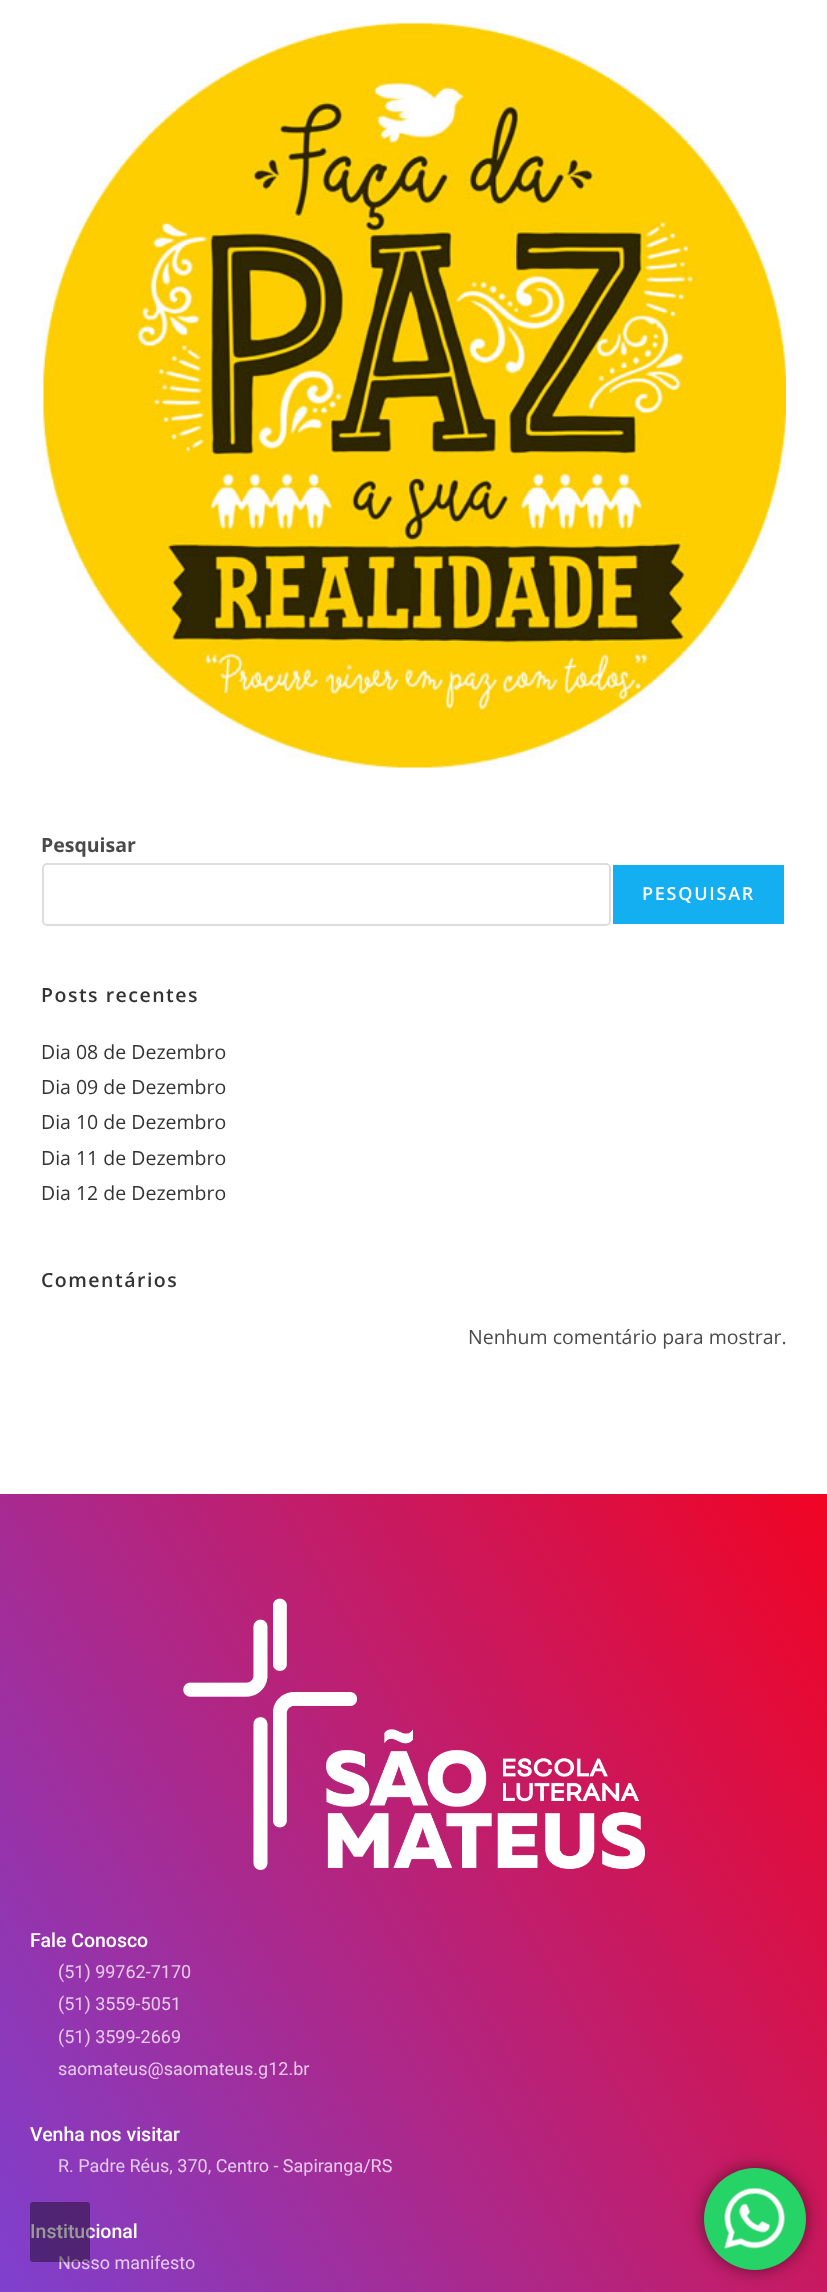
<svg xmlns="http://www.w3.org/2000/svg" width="827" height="2292">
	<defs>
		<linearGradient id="g1" gradientUnits="userSpaceOnUse" x1="-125" y1="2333" x2="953" y2="1711"><stop offset="0" stop-color="#7147E2" /><stop offset="1" stop-color="#F10423" /></linearGradient>
	</defs>
	<rect width="100%" height="100%" fill="#FFFFFF" />
	<image x="42" y="22" width="744" height="746" href="assets/img1.png" />
	<text x="41" y="852" font-family="Open Sans" font-size="19.5" font-weight="700" fill="#4A4A4A">Pesquisar</text>
	<rect x="43" y="864" width="567" height="61" rx="4" fill="none" stroke="#DDDDDD" stroke-width="2" />
	<rect x="613" y="865" width="171" height="59" fill="#13AFF0" />
	<text x="642" y="900" font-family="Open Sans" font-size="18" font-weight="600" letter-spacing="1.75" fill="#FFFFFF">PESQUISAR</text>
	<text x="41" y="1002" font-family="Open Sans" font-size="19.5" font-weight="600" letter-spacing="1.5" fill="#333333">Posts recentes</text>
	<g font-family="Open Sans" font-size="19.5" fill="#333333">
		<text x="41" y="1059">Dia 08 de Dezembro</text>
		<text x="41" y="1094">Dia 09 de Dezembro</text>
		<text x="41" y="1129">Dia 10 de Dezembro</text>
		<text x="41" y="1165">Dia 11 de Dezembro</text>
		<text x="41" y="1200">Dia 12 de Dezembro</text>
	</g>
	<text x="41" y="1287" font-family="Open Sans" font-size="19.5" font-weight="600" letter-spacing="1.5" fill="#333333">Comentários</text>
	<text x="468" y="1344" font-family="Open Sans" font-size="19.5" fill="#4A4A4A">Nenhum comentário para mostrar.</text>
	<rect x="0" y="1494" width="827" height="798" fill="url(#g1)" />
	<image x="183" y="1598" width="462" height="272" href="assets/img2.png" />
	<text x="30" y="1947" font-family="Roboto" font-size="19.5" font-weight="500" fill="#FFFFFF">Fale Conosco</text>
	<g font-family="Roboto" font-size="18" fill="#E5CAE8">
		<text x="58" y="1978">(51) 99762-7170</text>
		<text x="58" y="2010">(51) 3559-5051</text>
		<text x="58" y="2043">(51) 3599-2669</text>
		<text x="58" y="2075">saomateus@saomateus.g12.br</text>
	</g>
	<text x="30" y="2141" font-family="Roboto" font-size="19.5" font-weight="500" fill="#FFFFFF">Venha nos visitar</text>
	<text x="58" y="2172" font-family="Roboto" font-size="18" fill="#E5CAE8">R. Padre Réus, 370, Centro - Sapiranga/RS</text>
	<text x="30" y="2238" font-family="Roboto" font-size="19.5" font-weight="500" fill="#FFFFFF">Institucional</text>
	<text x="58" y="2269" font-family="Roboto" font-size="18" fill="#E5CAE8">Nosso manifesto</text>
	<rect x="30" y="2202" width="60" height="60" rx="3" fill="#000000" fill-opacity="0.4" />
	<rect x="704" y="2168" width="102" height="102" rx="51" fill="#000000" fill-opacity="0.5" filter="blur(8px)" />
	<circle cx="755" cy="2219" r="51" fill="#25D366" />
	<image x="724" y="2188" width="61" height="61" href="assets/img3.png" />
</svg>
